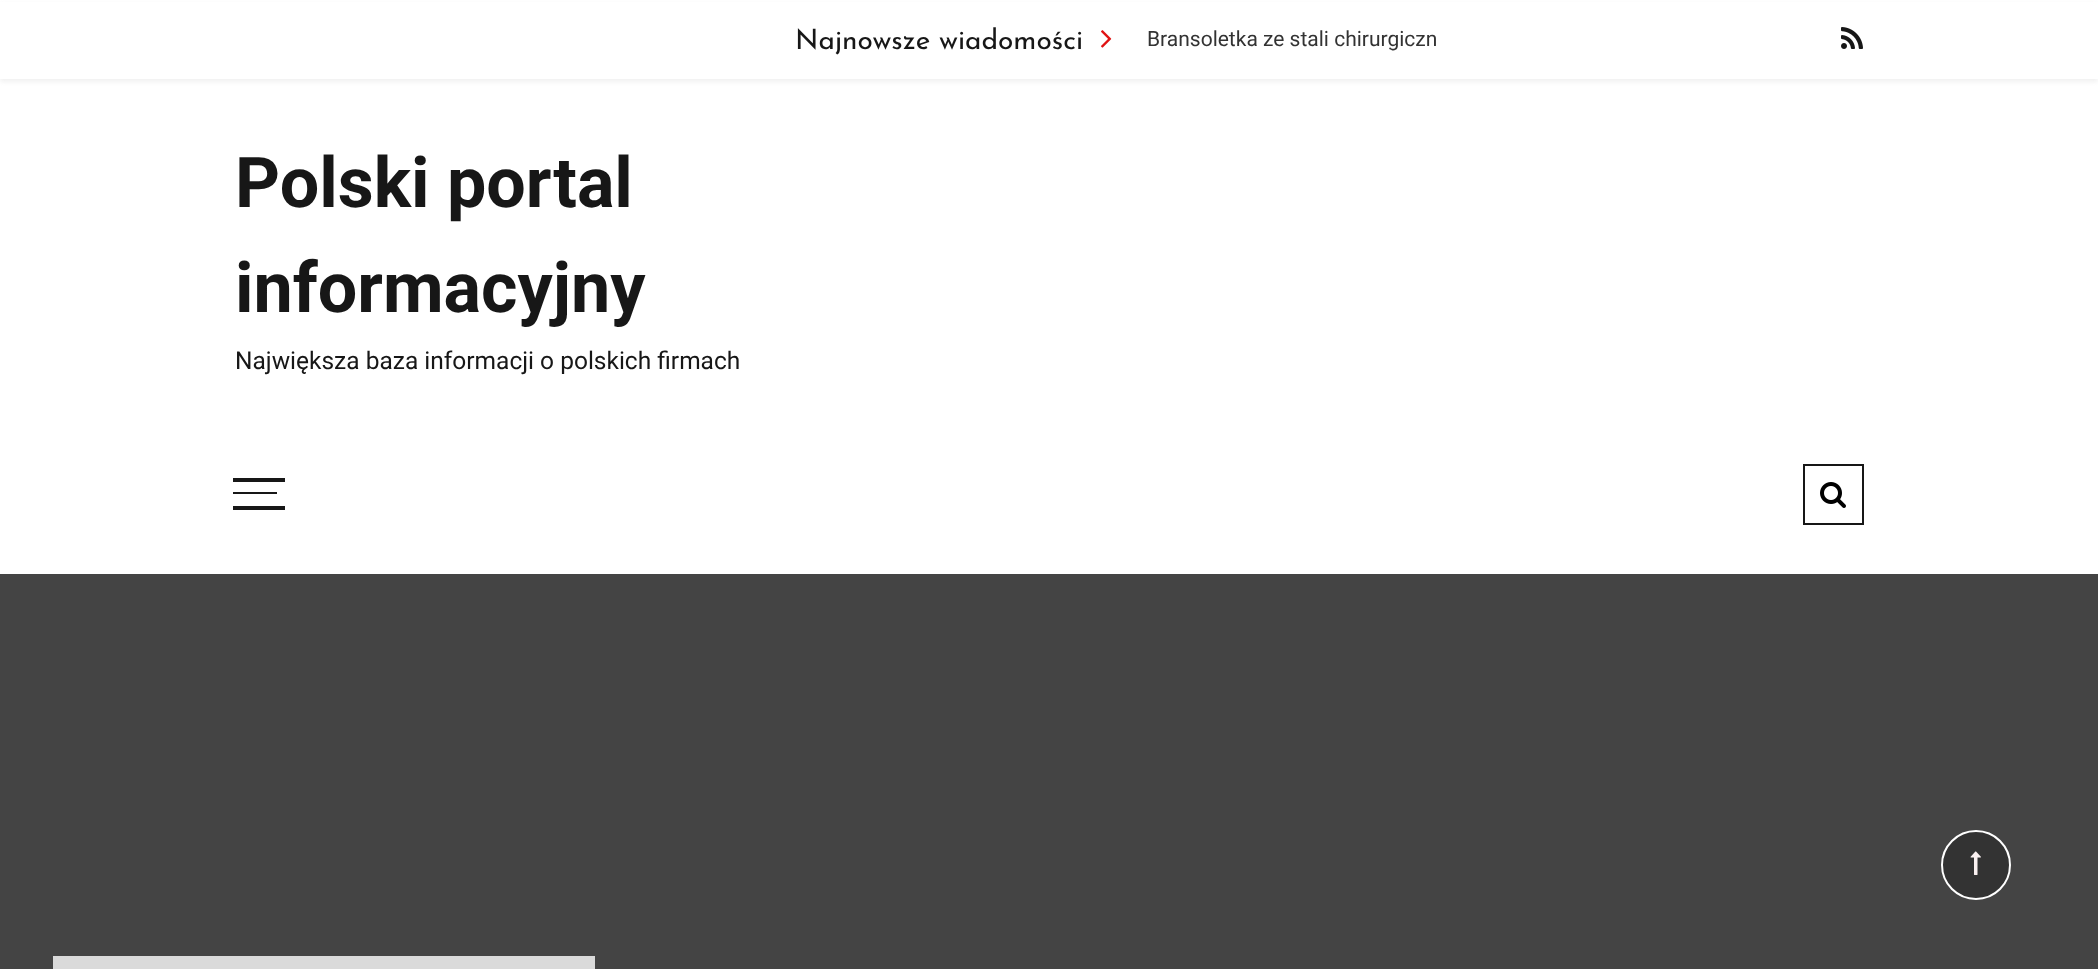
<svg xmlns="http://www.w3.org/2000/svg" width="2098" height="969">
	<rect width="100%" height="100%" fill="#FFFFFF" />
	<rect x="0" y="4" width="2098" height="78" fill="#F1F1F1" filter="blur(2px)" />
	<rect x="0" y="2" width="2098" height="77" fill="#FFFFFF" />
	<text x="795" y="49" font-family="Josefin Sans" font-size="28" fill="#171717">Najnowsze wiadomości</text>
	<image x="1101" y="30" width="11" height="18" href="assets/img1.png" />
	<text x="1147" y="46" font-family="Roboto" font-size="21" fill="#333333">Bransoletka ze stali chirurgiczn</text>
	<image x="1841" y="27" width="22" height="22" href="assets/img2.png" />
	<g font-family="Roboto" font-size="70" font-weight="700" fill="#171717">
		<text x="235" y="207">Polski portal</text>
		<text x="235" y="312">informacyjny</text>
	</g>
	<text x="235" y="369" font-family="Roboto" font-size="24.5" fill="#171717">Największa baza informacji o polskich firmach</text>
	<rect x="233" y="506" width="52" height="4" fill="#171717" />
	<rect x="233" y="478" width="52" height="4" fill="#171717" />
	<rect x="233" y="492" width="44" height="2" fill="#171717" />
	<rect x="1804" y="465" width="59" height="59" fill="none" stroke="#171717" stroke-width="2" />
	<image x="1820" y="482" width="26" height="26" href="assets/img3.png" />
	<rect x="0" y="574" width="2098" height="395" fill="#444444" />
	<rect x="53" y="956" width="542" height="13" fill="#DADADA" />
	<circle cx="1976" cy="865" r="34" fill="#333333" stroke="#FFFFFF" stroke-width="2" />
	<image x="1970" y="851" width="11" height="24" href="assets/img4.png" />
</svg>
